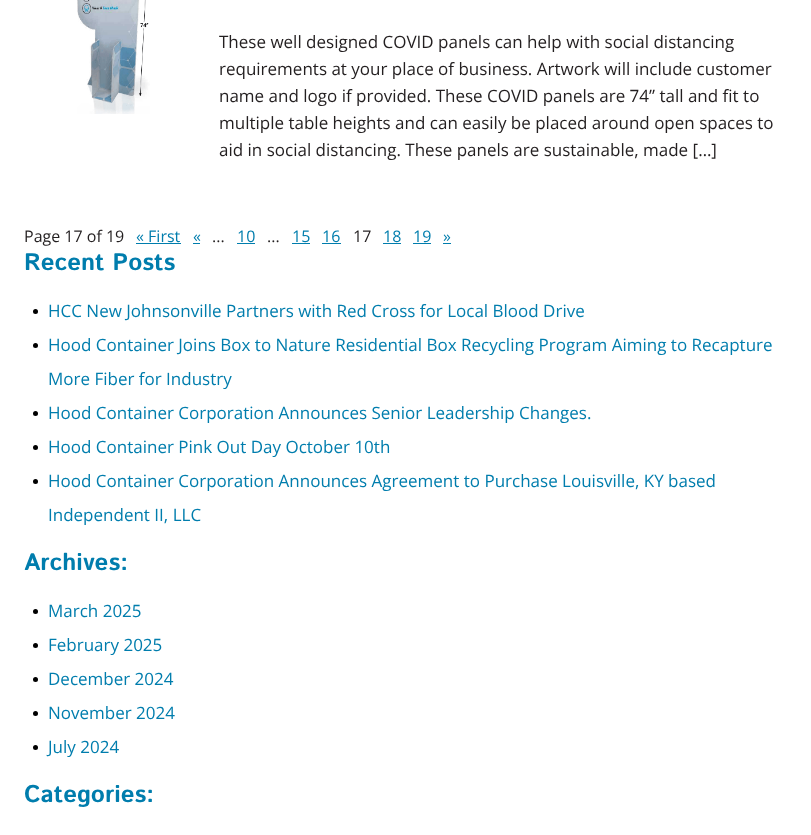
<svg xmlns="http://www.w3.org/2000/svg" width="811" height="835">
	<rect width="100%" height="100%" fill="#FFFFFF" />
	<image x="77" y="0" width="73" height="114" href="assets/img1.png" />
	<g font-family="Open Sans" font-size="17" fill="#231F20">
		<text x="219" y="48">These well designed COVID panels can help with social distancing</text>
		<text x="219" y="75">requirements at your place of business. Artwork will include customer</text>
		<text x="219" y="102">name and logo if provided. These COVID panels are 74” tall and fit to</text>
		<text x="219" y="129">multiple table heights and can easily be placed around open spaces to</text>
		<text x="219" y="156">aid in social distancing. These panels are sustainable, made […]</text>
	</g>
	<text x="24" y="242" font-family="Open Sans" font-size="16" fill="#231F20">Page 17 of 19</text>
	<text x="136" y="242" font-family="Open Sans" font-size="16" fill="#007DAD">« First</text>
	<rect x="136" y="243" width="45" height="1" fill="#007DAD" />
	<text x="193" y="242" font-family="Open Sans" font-size="16" fill="#007DAD">«</text>
	<rect x="193" y="243" width="7" height="1" fill="#007DAD" />
	<text x="212" y="242" font-family="Open Sans" font-size="16" fill="#231F20">...</text>
	<text x="237" y="242" font-family="Open Sans" font-size="16" fill="#007DAD">10</text>
	<rect x="237" y="243" width="18" height="1" fill="#007DAD" />
	<text x="267" y="242" font-family="Open Sans" font-size="16" fill="#231F20">...</text>
	<text x="292" y="242" font-family="Open Sans" font-size="16" fill="#007DAD">15</text>
	<rect x="292" y="243" width="18" height="1" fill="#007DAD" />
	<text x="322" y="242" font-family="Open Sans" font-size="16" fill="#007DAD">16</text>
	<rect x="322" y="243" width="19" height="1" fill="#007DAD" />
	<text x="353" y="242" font-family="Open Sans" font-size="16" fill="#231F20">17</text>
	<text x="383" y="242" font-family="Open Sans" font-size="16" fill="#007DAD">18</text>
	<rect x="383" y="243" width="18" height="1" fill="#007DAD" />
	<text x="413" y="242" font-family="Open Sans" font-size="16" fill="#007DAD">19</text>
	<rect x="413" y="243" width="18" height="1" fill="#007DAD" />
	<text x="443" y="242" font-family="Open Sans" font-size="16" fill="#007DAD">»</text>
	<rect x="443" y="243" width="8" height="1" fill="#007DAD" />
	<text x="24" y="270" font-family="Istok Web" font-size="24" font-weight="700" fill="#007DAD">Recent Posts</text>
	<circle cx="35.5" cy="311.5" r="2.5" fill="#000000" />
	<text x="48" y="317" font-family="Open Sans" font-size="17" fill="#007DAD">HCC New Johnsonville Partners with Red Cross for Local Blood Drive</text>
	<circle cx="35.5" cy="345.5" r="2.5" fill="#000000" />
	<g font-family="Open Sans" font-size="17" fill="#007DAD">
		<text x="48" y="351">Hood Container Joins Box to Nature Residential Box Recycling Program Aiming to Recapture</text>
		<text x="48" y="385">More Fiber for Industry</text>
	</g>
	<circle cx="35.5" cy="413.5" r="2.5" fill="#000000" />
	<text x="48" y="419" font-family="Open Sans" font-size="17" fill="#007DAD">Hood Container Corporation Announces Senior Leadership Changes.</text>
	<circle cx="35.5" cy="447.5" r="2.5" fill="#000000" />
	<text x="48" y="453" font-family="Open Sans" font-size="17" fill="#007DAD">Hood Container Pink Out Day October 10th</text>
	<circle cx="35.5" cy="481.5" r="2.5" fill="#000000" />
	<g font-family="Open Sans" font-size="17" fill="#007DAD">
		<text x="48" y="487">Hood Container Corporation Announces Agreement to Purchase Louisville, KY based</text>
		<text x="48" y="521">Independent II, LLC</text>
	</g>
	<text x="24" y="570" font-family="Istok Web" font-size="24" font-weight="700" fill="#007DAD">Archives:</text>
	<circle cx="35.5" cy="611.5" r="2.5" fill="#000000" />
	<text x="48" y="617" font-family="Open Sans" font-size="17" fill="#007DAD">March 2025</text>
	<circle cx="35.5" cy="645.5" r="2.5" fill="#000000" />
	<text x="48" y="651" font-family="Open Sans" font-size="17" fill="#007DAD">February 2025</text>
	<circle cx="35.5" cy="679.5" r="2.5" fill="#000000" />
	<text x="48" y="685" font-family="Open Sans" font-size="17" fill="#007DAD">December 2024</text>
	<circle cx="35.5" cy="713.5" r="2.5" fill="#000000" />
	<text x="48" y="719" font-family="Open Sans" font-size="17" fill="#007DAD">November 2024</text>
	<circle cx="35.5" cy="747.5" r="2.5" fill="#000000" />
	<text x="48" y="753" font-family="Open Sans" font-size="17" fill="#007DAD">July 2024</text>
	<text x="24" y="802" font-family="Istok Web" font-size="24" font-weight="700" fill="#007DAD">Categories:</text>
</svg>
